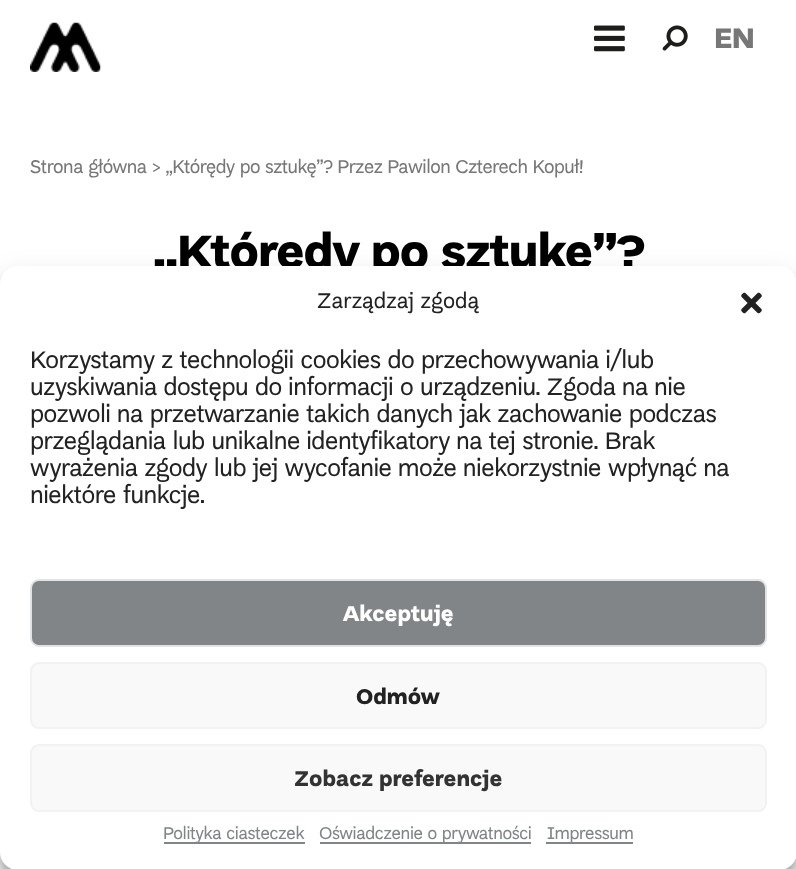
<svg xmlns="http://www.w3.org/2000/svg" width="796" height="869">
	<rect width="100%" height="100%" fill="#FFFFFF" />
	<image x="30" y="22" width="71" height="50" href="assets/img1.png" />
	<image x="594" y="25" width="31" height="27" href="assets/img2.png" />
	<image x="662" y="25" width="26" height="26" href="assets/img3.png" />
	<text x="714" y="48" font-family="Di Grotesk" font-size="30" font-weight="700" letter-spacing="-1" fill="#777777">EN</text>
	<text x="30" y="173" font-family="Di Grotesk" font-size="19.5" letter-spacing="-0.4" fill="#777777">Strona główna</text>
	<text x="152" y="173" font-family="Di Grotesk" font-size="19.5" letter-spacing="-0.5" fill="#777777">&gt; „Którędy po sztukę”? Przez Pawilon Czterech Kopuł!</text>
	<text x="153" y="268" font-family="Di Grotesk" font-size="49.5" font-weight="700" letter-spacing="-1" fill="#000000">„Którędy po sztukę”?</text>
	<rect x="0" y="275" width="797" height="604" rx="18" fill="#000000" fill-opacity="0.23" filter="blur(4.5px)" />
	<rect x="0" y="281" width="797" height="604" rx="18" fill="#000000" fill-opacity="0.19" filter="blur(15px)" />
	<rect x="0" y="266" width="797" height="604" rx="18" fill="#FFFFFF" />
	<text x="317" y="308" font-family="Di Grotesk" font-size="22.5" fill="#222222">Zarządzaj zgodą</text>
	<image x="741" y="292" width="21" height="22" href="assets/img4.png" />
	<g font-family="Di Grotesk" font-size="25.5" letter-spacing="-0.5" fill="#222222">
		<text x="30" y="368">Korzystamy z technologii cookies do przechowywania i/lub</text>
		<text x="30" y="395">uzyskiwania dostępu do informacji o urządzeniu. Zgoda na nie</text>
		<text x="30" y="422">pozwoli na przetwarzanie takich danych jak zachowanie podczas</text>
		<text x="30" y="449">przeglądania lub unikalne identyfikatory na tej stronie. Brak</text>
		<text x="30" y="476">wyrażenia zgody lub jej wycofanie może niekorzystnie wpłynąć na</text>
		<text x="30" y="503">niektóre funkcje.</text>
	</g>
	<rect x="31" y="580" width="735" height="66" rx="8" fill="#818588" stroke="#E1E4E6" stroke-width="2" />
	<text x="342" y="621" font-family="Di Grotesk" font-size="22.5" font-weight="700" fill="#FFFFFF">Akceptuję</text>
	<rect x="31" y="663" width="735" height="65" rx="8" fill="#F9F9F9" stroke="#F2F2F2" stroke-width="2" />
	<text x="356" y="704" font-family="Di Grotesk" font-size="22.5" font-weight="700" fill="#222222">Odmów</text>
	<rect x="31" y="745" width="735" height="66" rx="8" fill="#F9F9F9" stroke="#F2F2F2" stroke-width="2" />
	<text x="294" y="786" font-family="Di Grotesk" font-size="22.5" font-weight="700" fill="#333333">Zobacz preferencje</text>
	<rect x="164" y="842" width="141" height="2" fill="#818588" />
	<text x="163" y="839" font-family="Di Grotesk" font-size="18" letter-spacing="-0.35" fill="#818588">Polityka ciasteczek</text>
	<rect x="320" y="842" width="211" height="2" fill="#818588" />
	<text x="319" y="839" font-family="Di Grotesk" font-size="18" letter-spacing="-0.35" fill="#818588">Oświadczenie o prywatności</text>
	<rect x="546" y="842" width="87" height="2" fill="#818588" />
	<text x="547" y="839" font-family="Di Grotesk" font-size="18" letter-spacing="-0.35" fill="#818588">Impressum</text>
</svg>
